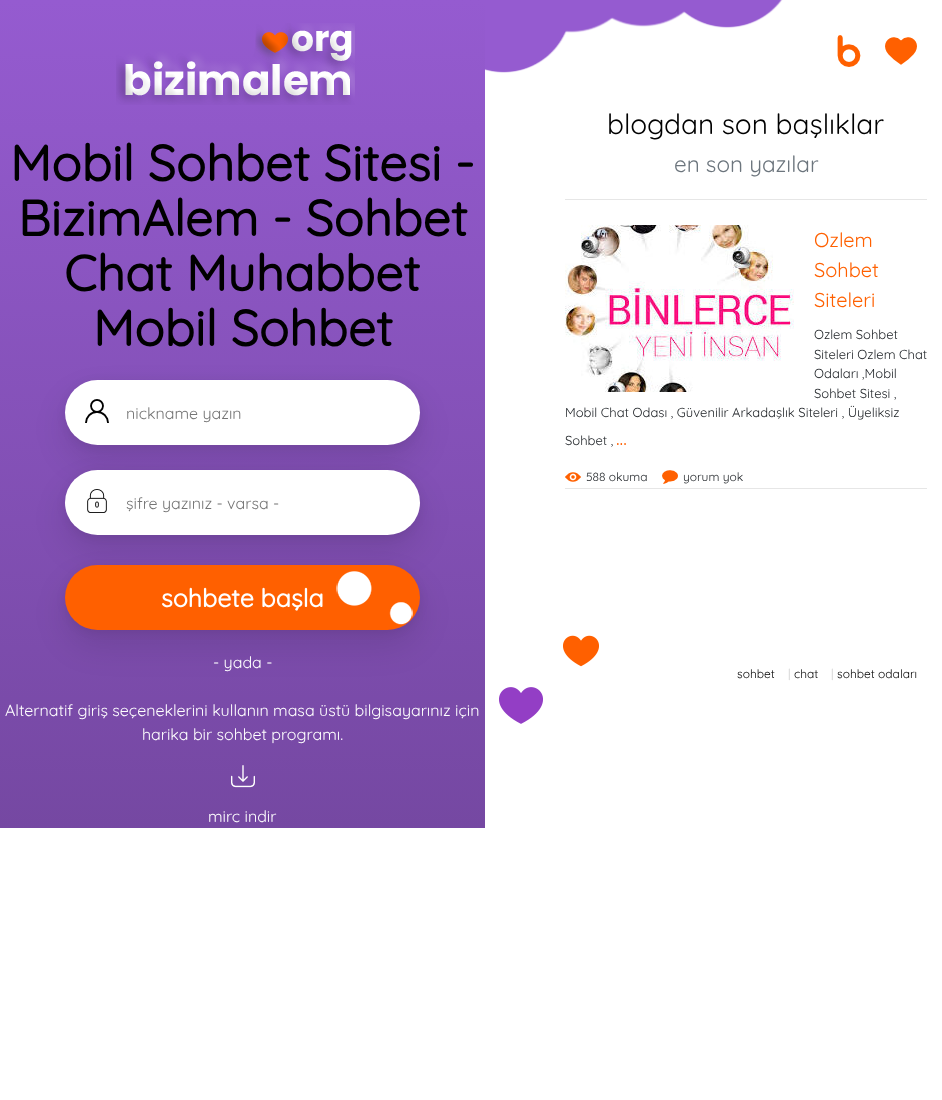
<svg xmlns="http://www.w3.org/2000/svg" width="942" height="1100">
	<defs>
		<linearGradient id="g1" gradientUnits="userSpaceOnUse" x1="242" y1="0" x2="243" y2="828"><stop offset="0" stop-color="#955BD0" /><stop offset="1" stop-color="#7548A2" /></linearGradient>
	</defs>
	<rect width="100%" height="100%" fill="#FFFFFF" />
	<image x="485" y="0" width="298" height="724" href="assets/img1.png" />
	<rect x="0" y="0" width="485" height="828" fill="url(#g1)" />
	<image x="116" y="23" width="239" height="82" href="assets/img2.png" />
	<image x="837" y="35" width="24" height="32" href="assets/img3.png" />
	<image x="885" y="37" width="32" height="28" href="assets/img4.png" />
	<g font-family="Quicksand" font-size="50" font-weight="700" fill="#000000">
		<text x="10" y="181">Mobil Sohbet Sitesi -</text>
		<text x="18" y="236">BizimAlem - Sohbet</text>
		<text x="64" y="291">Chat Muhabbet</text>
		<text x="93" y="346">Mobil Sohbet</text>
	</g>
	<rect x="65" y="382" width="355" height="65" rx="32.5" fill="#000000" fill-opacity="0.06" filter="blur(5px)" />
	<rect x="65" y="396" width="355" height="65" rx="32.5" fill="#000000" fill-opacity="0.1" filter="blur(16px)" />
	<rect x="65" y="380" width="355" height="65" rx="32.5" fill="#FFFFFF" />
	<image x="85" y="399" width="24" height="24" href="assets/img5.png" />
	<text x="126" y="419" font-family="Quicksand" font-size="16" font-weight="300" fill="#757575">nickname yazın</text>
	<rect x="65" y="472" width="355" height="65" rx="32.5" fill="#000000" fill-opacity="0.06" filter="blur(5px)" />
	<rect x="65" y="486" width="355" height="65" rx="32.5" fill="#000000" fill-opacity="0.1" filter="blur(16px)" />
	<rect x="65" y="470" width="355" height="65" rx="32.5" fill="#FFFFFF" />
	<image x="87" y="489" width="20" height="24" href="assets/img6.png" />
	<text x="126" y="509" font-family="Quicksand" font-size="16" font-weight="300" fill="#757575">şifre yazınız - varsa -</text>
	<rect x="65" y="567" width="355" height="65" rx="32.5" fill="#000000" fill-opacity="0.06" filter="blur(5px)" />
	<rect x="65" y="581" width="355" height="65" rx="32.5" fill="#000000" fill-opacity="0.1" filter="blur(16px)" />
	<rect x="65" y="565" width="355" height="65" rx="32.5" fill="#FF6000" />
	<image x="336" y="571" width="77" height="54" href="assets/img7.png" />
	<text x="161" y="607" font-family="Quicksand" font-size="25" font-weight="700" fill="#FFFFFF">sohbete başla</text>
	<g font-family="Quicksand" font-size="16" font-weight="300" fill="#FFFFFF">
		<text x="213" y="668">- yada -</text>
		<text x="5" y="716">Alternatif giriş seçeneklerini kullanın masa üstü bilgisayarınız için</text>
		<text x="142" y="740">harika bir sohbet programı.</text>
	</g>
	<image x="231" y="765" width="24" height="23" href="assets/img8.png" />
	<text x="208" y="822" font-family="Quicksand" font-size="16" font-weight="300" fill="#FFFFFF">mirc indir</text>
	<text x="607" y="134" font-family="Quicksand" font-size="28" font-weight="300" fill="#000000">blogdan son başlıklar</text>
	<text x="674" y="172" font-family="Quicksand" font-size="22.5" font-weight="300" fill="#6C757D">en son yazılar</text>
	<rect x="565" y="199" width="362" height="1" fill="#E6E6E6" />
	<image x="565" y="225" width="229" height="167" href="assets/img9.png" />
	<g font-family="Quicksand" font-size="20" font-weight="300" fill="#FF6000">
		<text x="814" y="247">Ozlem</text>
		<text x="814" y="277">Sohbet</text>
		<text x="814" y="307">Siteleri</text>
	</g>
	<g font-family="Quicksand" font-size="13" font-weight="300" fill="#212529">
		<text x="814" y="339">Ozlem Sohbet</text>
		<text x="814" y="359">Siteleri Ozlem Chat</text>
		<text x="814" y="378">Odaları ,Mobil</text>
		<text x="814" y="398">Sohbet Sitesi ,</text>
		<text x="565" y="417">Mobil Chat Odası , Güvenilir Arkadaşlık Siteleri , Üyeliksiz</text>
		<text x="565" y="445">Sohbet ,</text>
	</g>
	<text x="616" y="445" font-family="Quicksand" font-size="20" font-weight="300" fill="#FF6000">...</text>
	<image x="565" y="472" width="16" height="10" href="assets/img10.png" />
	<text x="586" y="481" font-family="Quicksand" font-size="12" font-weight="300" fill="#212529">588 okuma</text>
	<image x="662" y="470" width="16" height="14" href="assets/img11.png" />
	<text x="683" y="481" font-family="Quicksand" font-size="12" font-weight="300" fill="#212529">yorum yok</text>
	<rect x="565" y="488" width="362" height="1" fill="#E6E6E6" />
	<text x="737" y="678" font-family="Quicksand" font-size="12" font-weight="300" fill="#000000">sohbet</text>
	<text x="788" y="678" font-family="Quicksand" font-size="12" font-weight="300" fill="#CCCCCC">|</text>
	<text x="794" y="678" font-family="Quicksand" font-size="12" font-weight="300" fill="#000000">chat</text>
	<text x="831" y="678" font-family="Quicksand" font-size="12" font-weight="300" fill="#CCCCCC">|</text>
	<text x="837" y="678" font-family="Quicksand" font-size="12" font-weight="300" fill="#000000">sohbet odaları</text>
</svg>
